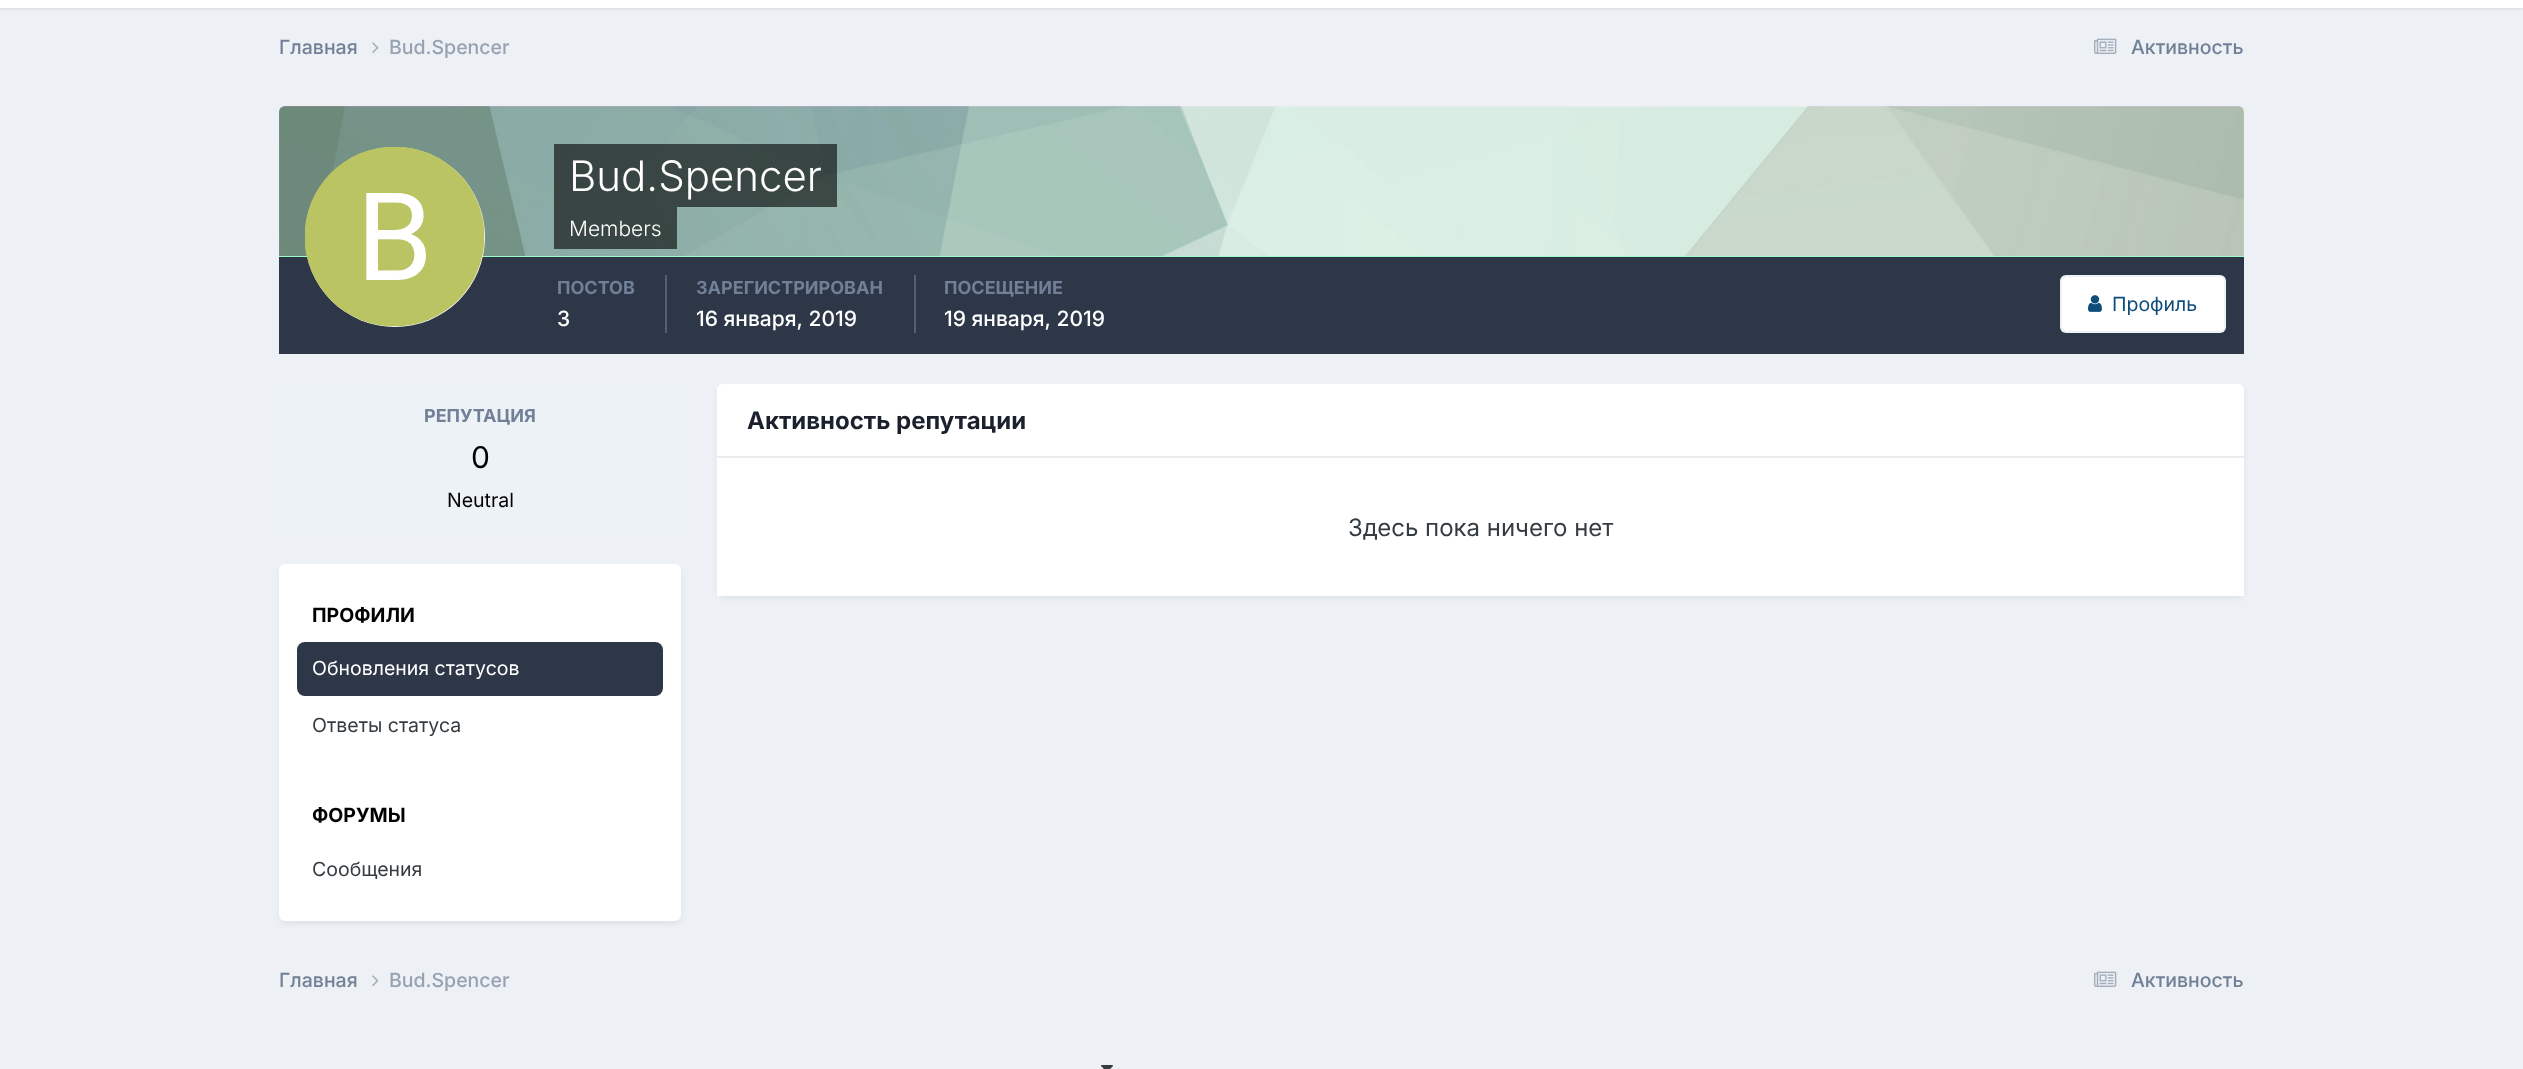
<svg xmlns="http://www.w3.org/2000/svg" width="2523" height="1069">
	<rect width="100%" height="100%" fill="#EDF0F4" />
	<rect x="0" y="-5" width="2523" height="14" fill="#000000" fill-opacity="0.1" filter="blur(1.5px)" />
	<rect x="0" y="0" width="2523" height="8" fill="#FFFFFF" />
	<text x="279" y="54" font-family="Inter" font-size="19.5" font-weight="500" fill="#718096">Главная</text>
	<image x="372" y="42" width="7" height="11" href="assets/img1.png" />
	<text x="389" y="54" font-family="Inter" font-size="19.5" font-weight="500" fill="#96A2B2">Bud.Spencer</text>
	<image x="2094" y="38" width="23" height="16" href="assets/img2.png" />
	<text x="2131" y="54" font-family="Inter" font-size="19.5" font-weight="500" fill="#718096">Активность</text>
	<path d="M285 107H2238C2241.5 107 2244 109.5 2244 113V257H279V113C279 109.5 281.5 107 285 107Z" fill="#99FFCA" />
	<image x="279" y="106" width="1965" height="150" href="assets/img3.png" />
	<rect x="279" y="257" width="1965" height="97" fill="#2D3748" />
	<circle cx="395" cy="237" r="90" fill="#FFFFFF" />
	<image x="305" y="147" width="180" height="180" href="assets/img4.png" />
	<rect x="554" y="144" width="283" height="63" fill="#000000" fill-opacity="0.6" />
	<text x="569" y="191" font-family="Inter" font-size="42" font-weight="300" fill="#FFFFFF">Bud.Spencer</text>
	<rect x="554" y="207" width="123" height="42" fill="#000000" fill-opacity="0.6" />
	<text x="569" y="236" font-family="Inter" font-size="21" font-weight="300" fill="#FFFFFF">Members</text>
	<rect x="665" y="275" width="2" height="58" fill="#575F6D" />
	<text x="557" y="294" font-family="Inter" font-size="18" font-weight="700" fill="#718096">ПОСТОВ</text>
	<text x="557" y="326" font-family="Inter" font-size="21" font-weight="500" fill="#FFFFFF">3</text>
	<rect x="914" y="275" width="2" height="58" fill="#575F6D" />
	<text x="696" y="294" font-family="Inter" font-size="18" font-weight="700" fill="#718096">ЗАРЕГИСТРИРОВАН</text>
	<text x="696" y="326" font-family="Inter" font-size="21" font-weight="500" fill="#FFFFFF">16 января, 2019</text>
	<text x="944" y="294" font-family="Inter" font-size="18" font-weight="700" fill="#718096">ПОСЕЩЕНИЕ</text>
	<text x="944" y="326" font-family="Inter" font-size="21" font-weight="500" fill="#FFFFFF">19 января, 2019</text>
	<rect x="2060" y="275" width="166" height="58" rx="6" fill="#FFFFFF" />
	<rect x="2061" y="276" width="164" height="56" rx="5" fill="none" stroke="#0E4C79" stroke-opacity="0.07" stroke-width="2" />
	<image x="2088" y="295" width="14" height="17" href="assets/img5.png" />
	<text x="2112" y="311" font-family="Inter" font-size="19.5" fill="#0E4C79">Профиль</text>
	<rect x="279" y="384" width="402" height="150" fill="#EDF2F7" />
	<text x="424" y="422" font-family="Inter" font-size="18" font-weight="700" fill="#718096">РЕПУТАЦИЯ</text>
	<text x="471" y="468" font-family="Inter" font-size="30" fill="#000000">0</text>
	<text x="447" y="507" font-family="Inter" font-size="19.5" fill="#000000">Neutral</text>
	<rect x="281" y="569" width="399" height="354" rx="5" fill="#2D3748" fill-opacity="0.1" filter="blur(3px)" />
	<rect x="279" y="564" width="402" height="357" rx="6" fill="#FFFFFF" />
	<text x="312" y="622" font-family="Inter" font-size="19.5" font-weight="700" fill="#000000">ПРОФИЛИ</text>
	<rect x="297" y="642" width="366" height="54" rx="8" fill="#2D3748" />
	<text x="312" y="675" font-family="Inter" font-size="19.5" fill="#FFFFFF">Обновления статусов</text>
	<text x="312" y="732" font-family="Inter" font-size="19.5" fill="#353C41">Ответы статуса</text>
	<text x="312" y="822" font-family="Inter" font-size="19.5" font-weight="700" fill="#000000">ФОРУМЫ</text>
	<text x="312" y="876" font-family="Inter" font-size="19.5" fill="#353C41">Сообщения</text>
	<rect x="719" y="389" width="1524" height="208" rx="5" fill="#2D3748" fill-opacity="0.1" filter="blur(3px)" />
	<path d="M723 384H2238C2241.5 384 2244 386.5 2244 390V458H717V390C717 386.5 719.5 384 723 384Z" fill="#FFFFFF" />
	<rect x="717" y="456" width="1527" height="2" fill="#EAECEF" />
	<text x="747" y="429" font-family="Inter" font-size="24" font-weight="700" fill="#1A202C">Активность репутации</text>
	<rect x="717" y="458" width="1527" height="138" fill="#FFFFFF" />
	<text x="1348" y="536" font-family="Inter" font-size="24" fill="#353C41">Здесь пока ничего нет</text>
	<text x="279" y="987" font-family="Inter" font-size="19.5" font-weight="500" fill="#718096">Главная</text>
	<image x="372" y="975" width="7" height="11" href="assets/img1.png" />
	<text x="389" y="987" font-family="Inter" font-size="19.5" font-weight="500" fill="#96A2B2">Bud.Spencer</text>
	<image x="2094" y="971" width="23" height="16" href="assets/img2.png" />
	<text x="2131" y="987" font-family="Inter" font-size="19.5" font-weight="500" fill="#718096">Активность</text>
	<image x="1101" y="1065" width="12" height="4" href="assets/img6.png" />
</svg>
